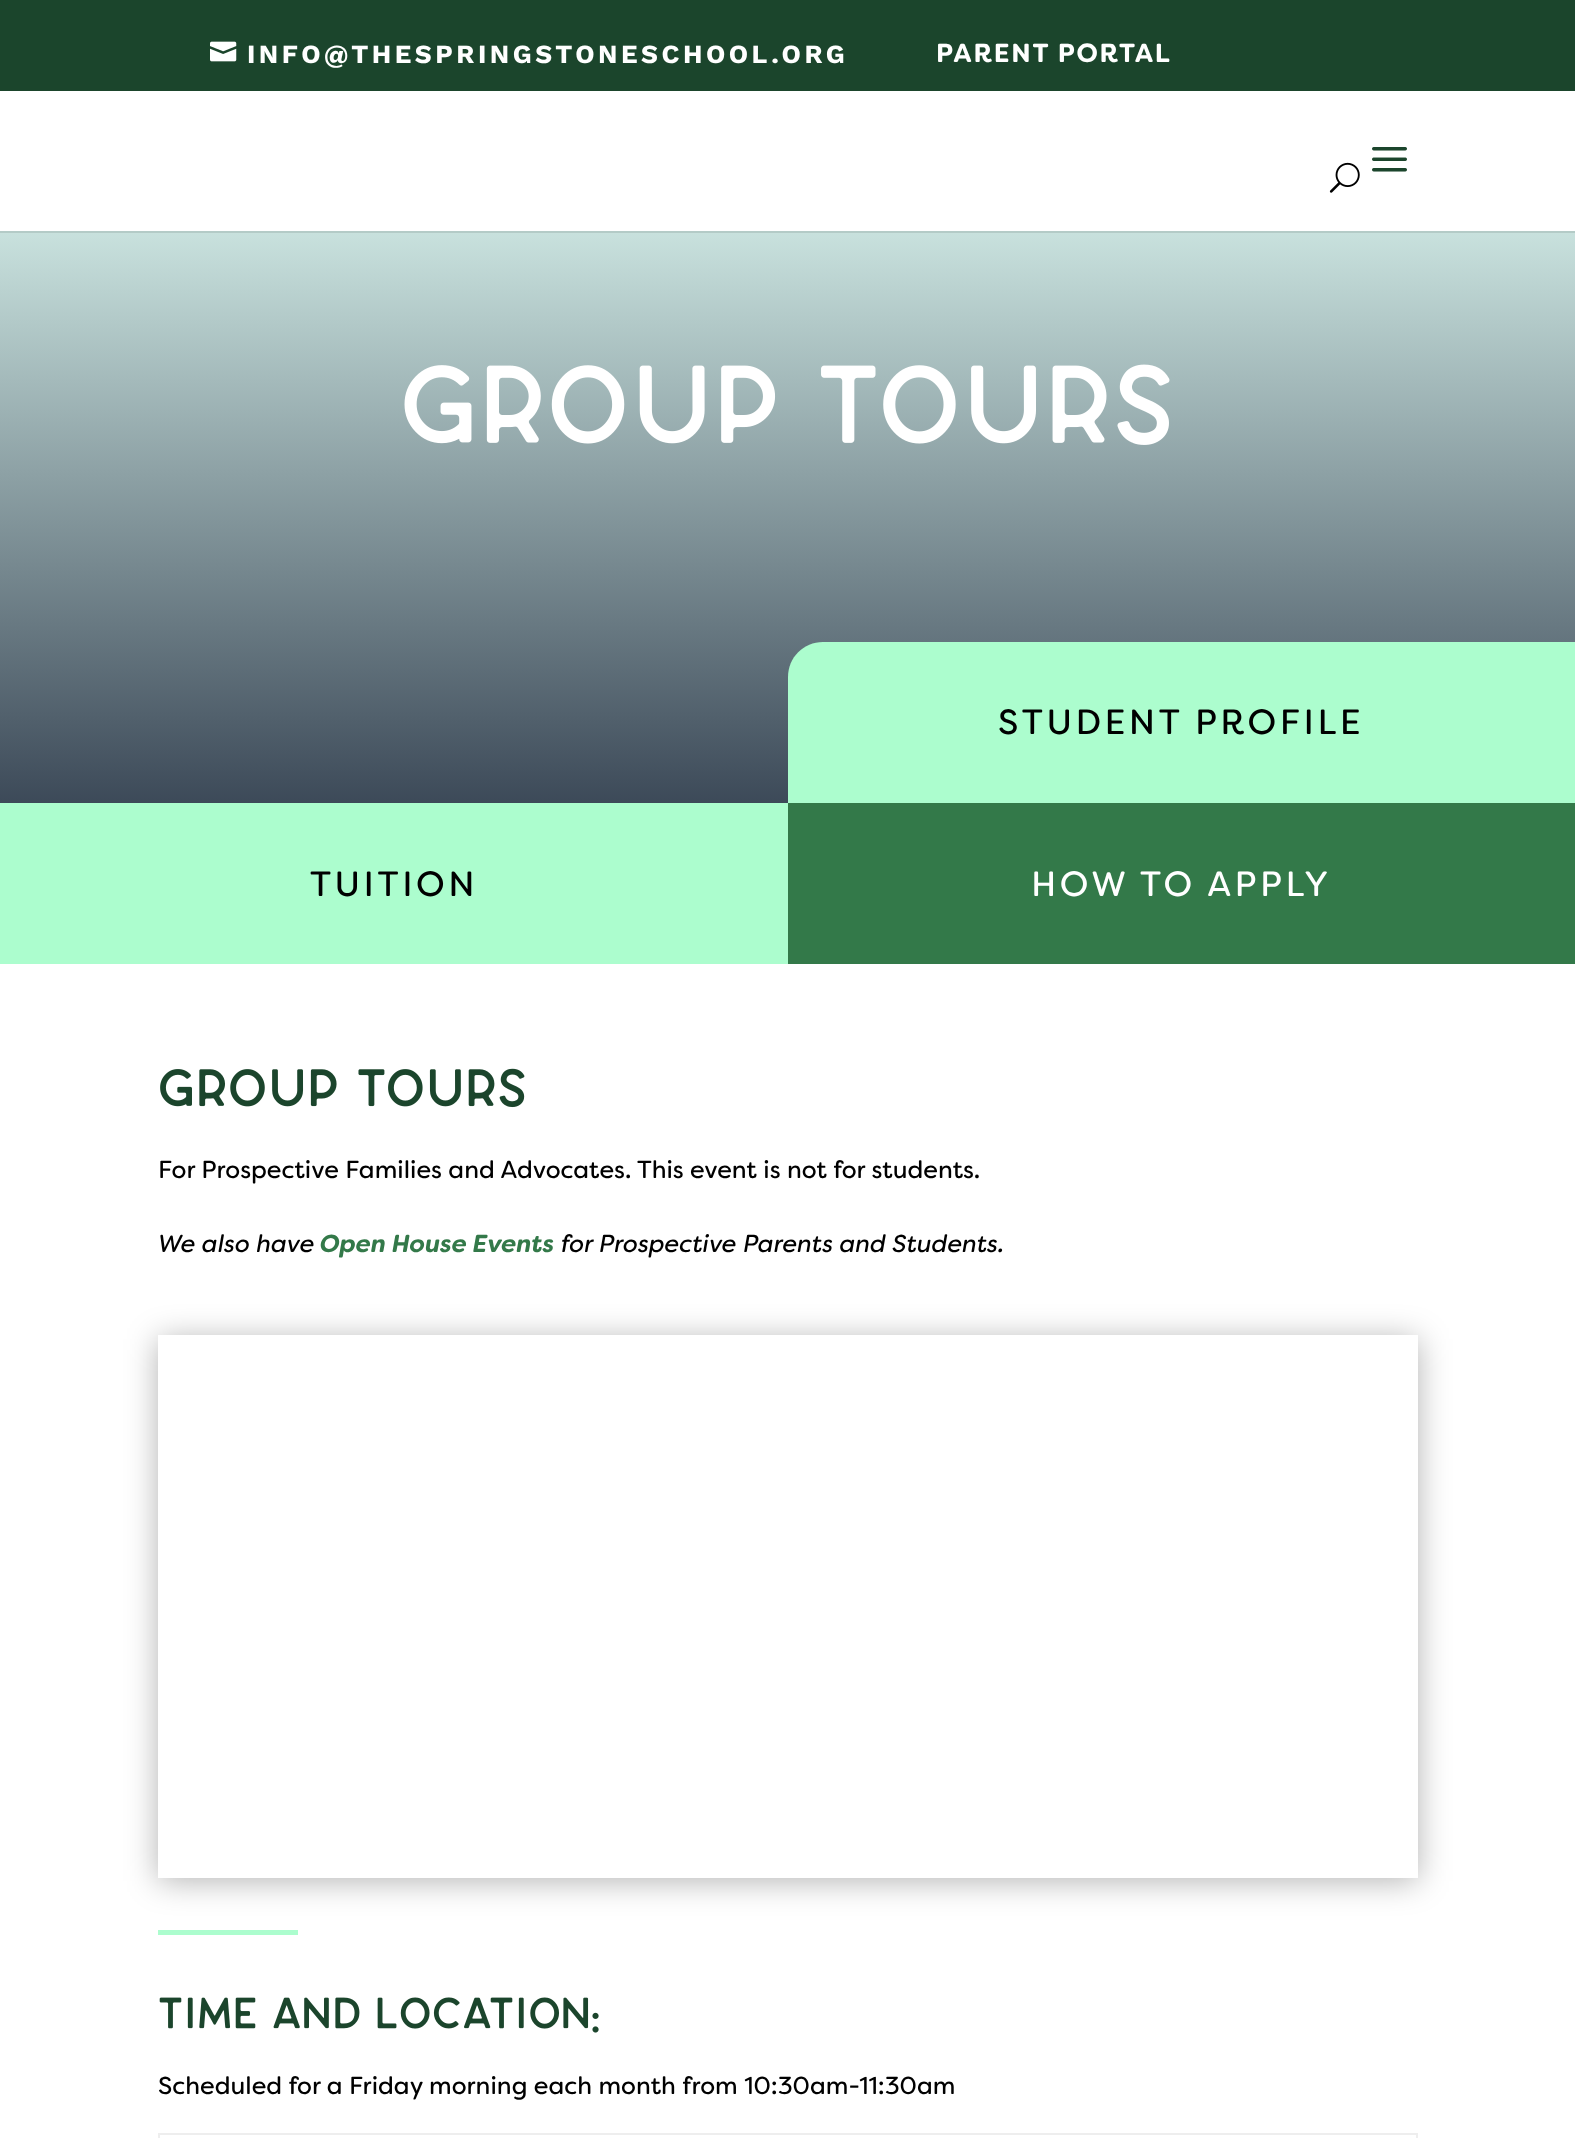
<svg xmlns="http://www.w3.org/2000/svg" width="1575" height="2138">
	<defs>
		<linearGradient id="g1" gradientUnits="userSpaceOnUse" x1="788" y1="229" x2="788" y2="964"><stop offset="0" stop-color="#C9E2DE" /><stop offset="1" stop-color="#151F33" /></linearGradient>
		<clipPath id="clip1"><path d="M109 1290H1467V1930H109ZM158 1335H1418V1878H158Z" clip-rule="evenodd" /></clipPath>
	</defs>
	<rect width="100%" height="100%" fill="#FFFFFF" />
	<rect x="0" y="0" width="1575" height="91" fill="#1B452C" />
	<image x="210" y="41" width="27" height="21" href="assets/img1.png" />
	<text x="247" y="63" font-family="Work Sans" font-size="26.25" font-weight="700" letter-spacing="3.5" fill="#FFFFFF">INFO@THESPRINGSTONESCHOOL.ORG</text>
	<text x="936" y="62" font-family="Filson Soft" font-size="26.25" font-weight="700" letter-spacing="1.75" fill="#FFFFFF">PARENT PORTAL</text>
	<rect x="0" y="231" width="1575" height="2" fill="#B4CBC7" />
	<image x="1372" y="147" width="35" height="25" href="assets/img2.png" />
	<image x="1329" y="162" width="31" height="31" href="assets/img3.png" />
	<rect x="0" y="233" width="1575" height="570" fill="url(#g1)" />
	<image x="404" y="364" width="766" height="81" href="assets/img4.png" />
	<path d="M823 642H1575V803H788V677C788 657.5 803.5 642 823 642Z" fill="#ACFDCE" />
	<text x="998" y="734" font-family="Filson Soft" font-size="35" letter-spacing="3.5" fill="#000000">STUDENT PROFILE</text>
	<rect x="0" y="803" width="788" height="161" fill="#ACFDCE" />
	<text x="310" y="896" font-family="Filson Soft" font-size="35" letter-spacing="3.5" fill="#000000">TUITION</text>
	<rect x="788" y="803" width="787" height="161" fill="#337949" />
	<text x="1031" y="896" font-family="Filson Soft" font-size="35" letter-spacing="3.5" fill="#FFFFFF">HOW TO APPLY</text>
	<image x="160" y="1068" width="365" height="40" href="assets/img5.png" />
	<text x="158" y="1178" font-family="Filson Soft" font-size="24.5" fill="#000000">For Prospective Families and Advocates. This event is not for students.</text>
	<text x="158" y="1252" font-family="Filson Soft" font-size="24.5" font-style="italic" fill="#000000">We also have</text>
	<text x="320" y="1252" font-family="Filson Soft" font-size="24.5" font-weight="700" font-style="italic" fill="#337949">Open House Events</text>
	<text x="561" y="1252" font-family="Filson Soft" font-size="24.5" font-style="italic" fill="#000000">for Prospective Parents and Students.</text>
	<g clip-path="url(#clip1)">
		<rect x="158" y="1339" width="1260" height="542" fill="#000000" fill-opacity="0.3" filter="blur(16px)" />
	</g>
	<rect x="158" y="1930" width="140" height="5" fill="#ACFDCE" />
	<image x="159" y="1997" width="440" height="36" href="assets/img6.png" />
	<text x="158" y="2094" font-family="Filson Soft" font-size="24.5" fill="#000000">Scheduled for a Friday morning each month from 10:30am-11:30am</text>
	<rect x="158" y="2133" width="1260" height="2" fill="#EEEEEE" />
	<rect x="1416" y="2133" width="2" height="5" fill="#EEEEEE" />
	<rect x="158" y="2133" width="2" height="5" fill="#EEEEEE" />
</svg>
